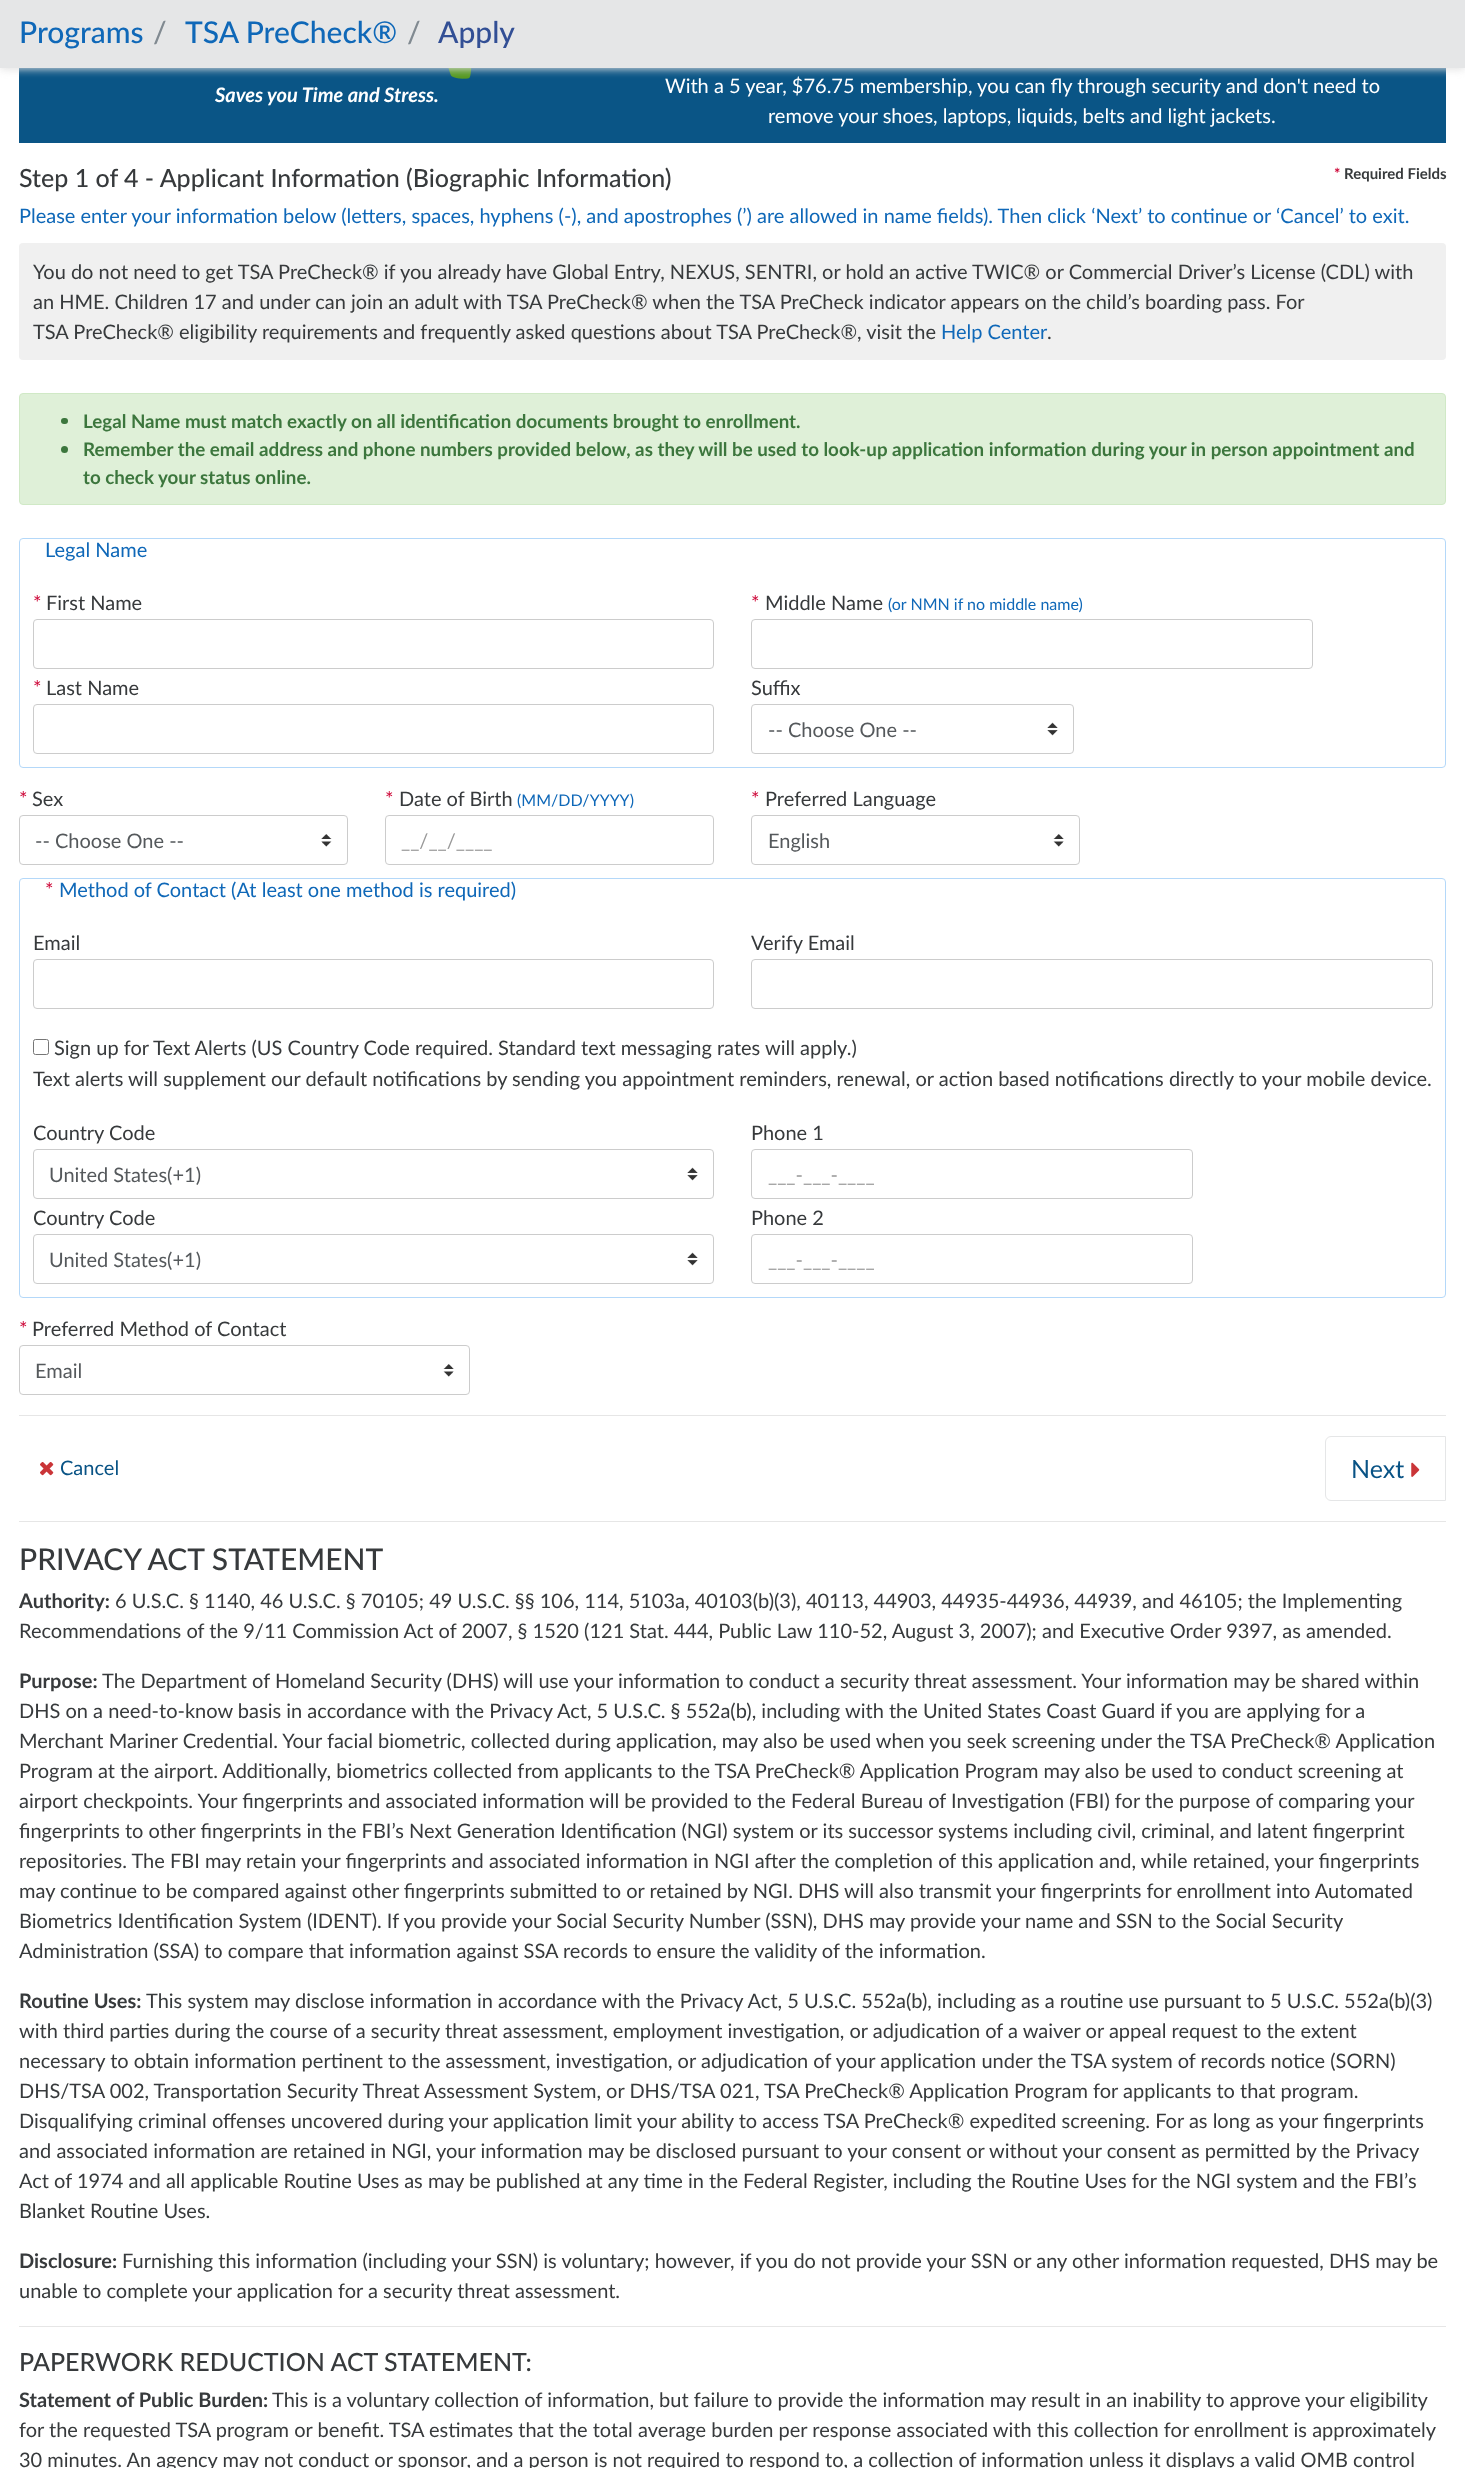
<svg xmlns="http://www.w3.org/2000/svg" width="1465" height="2468">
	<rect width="100%" height="100%" fill="#FFFFFF" />
	<rect x="19" y="68" width="1427" height="75" fill="#0A5586" />
	<image x="448" y="68" width="24" height="11" href="assets/img1.png" />
	<image x="971" y="68" width="77" height="1" href="assets/img2.png" />
	<rect x="0" y="1" width="1465" height="68" fill="#DFDFDF" filter="blur(4px)" />
	<rect x="0" y="0" width="1465" height="68" fill="#E5E6E7" />
	<text x="19" y="43" font-family="Lato" font-size="30" font-weight="500" fill="#0F68B8">Programs</text>
	<text x="153" y="43" font-family="Lato" font-size="30" font-weight="500" fill="#818A91">/</text>
	<text x="185" y="43" font-family="Lato" font-size="30" font-weight="500" fill="#0F68B8">TSA PreCheck®</text>
	<text x="407" y="43" font-family="Lato" font-size="30" font-weight="500" fill="#818A91">/</text>
	<text x="438" y="43" font-family="Lato" font-size="30" font-weight="500" fill="#324F95">Apply</text>
	<text x="215" y="102" font-family="Lato" font-size="20" font-weight="700" font-style="italic" fill="#FFFFFF">Saves you Time and Stress.</text>
	<g font-family="Lato" font-size="20" fill="#FFFFFF">
		<text x="665" y="93">With a 5 year, $76.75 membership, you can fly through security and don't need to</text>
		<text x="768" y="123">remove your shoes, laptops, liquids, belts and light jackets.</text>
	</g>
	<text x="19" y="187" font-family="Lato" font-size="25" font-weight="500" fill="#373A3C">Step 1 of 4 - Applicant Information (Biographic Information)</text>
	<text x="1334" y="179" font-family="Lato" font-size="15" font-weight="700" fill="#CC0033">*</text>
	<text x="1344" y="179" font-family="Lato" font-size="15" font-weight="700" fill="#373A3C">Required Fields</text>
	<text x="19" y="223" font-family="Lato" font-size="20" fill="#0F68B8">Please enter your information below (letters, spaces, hyphens (-), and apostrophes (’) are allowed in name fields). Then click ‘Next’ to continue or ‘Cancel’ to exit.</text>
	<rect x="19" y="243" width="1427" height="117" rx="4" fill="#F0F0F0" />
	<g font-family="Lato" font-size="20" fill="#373A3C">
		<text x="33" y="279">You do not need to get TSA PreCheck® if you already have Global Entry, NEXUS, SENTRI, or hold an active TWIC® or Commercial Driver’s License (CDL) with</text>
		<text x="33" y="309">an HME. Children 17 and under can join an adult with TSA PreCheck® when the TSA PreCheck indicator appears on the child’s boarding pass. For</text>
		<text x="33" y="339">TSA PreCheck® eligibility requirements and frequently asked questions about TSA PreCheck®, visit the</text>
	</g>
	<text x="941" y="339" font-family="Lato" font-size="20" fill="#0F68B8">Help Center</text>
	<text x="1047" y="339" font-family="Lato" font-size="20" fill="#373A3C">.</text>
	<rect x="19.5" y="393.5" width="1426" height="111" rx="3.5" fill="#DFF0D8" stroke="#D0E9C6" />
	<rect x="61" y="418" width="7" height="6" rx="3" fill="#3C763D" />
	<text x="83" y="428" font-family="Lato" font-size="18.75" font-weight="700" fill="#3C763D">Legal Name must match exactly on all identification documents brought to enrollment.</text>
	<circle cx="64.5" cy="449.5" r="3.5" fill="#3C763D" />
	<g font-family="Lato" font-size="18.75" font-weight="700" fill="#3C763D">
		<text x="83" y="456">Remember the email address and phone numbers provided below, as they will be used to look-up application information during your in person appointment and</text>
		<text x="83" y="484">to check your status online.</text>
	</g>
	<rect x="19.5" y="538.5" width="1426" height="229" rx="3.5" fill="none" stroke="#B4D8F9" />
	<text x="45" y="557" font-family="Lato" font-size="20" fill="#0F68B8">Legal Name</text>
	<text x="33" y="610" font-family="Lato" font-size="20" fill="#CC0033">*</text>
	<text x="46" y="610" font-family="Lato" font-size="20" fill="#373A3C">First Name</text>
	<rect x="33.5" y="619.5" width="680" height="49" rx="3.5" fill="none" stroke="#CCCCCC" />
	<text x="751" y="610" font-family="Lato" font-size="20" fill="#CC0033">*</text>
	<text x="765" y="610" font-family="Lato" font-size="20" fill="#373A3C">Middle Name</text>
	<text x="888" y="610" font-family="Lato" font-size="16" fill="#0F68B8">(or NMN if no middle name)</text>
	<rect x="751.5" y="619.5" width="561" height="49" rx="3.5" fill="none" stroke="#CCCCCC" />
	<text x="33" y="695" font-family="Lato" font-size="20" fill="#CC0033">*</text>
	<text x="46" y="695" font-family="Lato" font-size="20" fill="#373A3C">Last Name</text>
	<rect x="33.5" y="704.5" width="680" height="49" rx="3.5" fill="none" stroke="#CCCCCC" />
	<text x="751" y="695" font-family="Lato" font-size="20" fill="#373A3C">Suffix</text>
	<image x="1047" y="722" width="11" height="14" href="assets/img3.png" />
	<rect x="751.5" y="704.5" width="322" height="49" rx="3.5" fill="none" stroke="#CCCCCC" />
	<text x="768" y="737" font-family="Lato" font-size="20" fill="#55595C">-- Choose One --</text>
	<text x="19" y="806" font-family="Lato" font-size="20" fill="#CC0033">*</text>
	<text x="32" y="806" font-family="Lato" font-size="20" fill="#373A3C">Sex</text>
	<image x="321" y="834" width="11" height="13" href="assets/img4.png" />
	<rect x="19.5" y="815.5" width="328" height="49" rx="3.5" fill="none" stroke="#CCCCCC" />
	<text x="35" y="848" font-family="Lato" font-size="20" fill="#55595C">-- Choose One --</text>
	<text x="385" y="806" font-family="Lato" font-size="20" fill="#CC0033">*</text>
	<text x="399" y="806" font-family="Lato" font-size="20" fill="#373A3C">Date of Birth</text>
	<text x="517" y="806" font-family="Lato" font-size="16" fill="#0F68B8">(MM/DD/YYYY)</text>
	<rect x="385.5" y="815.5" width="328" height="49" rx="3.5" fill="none" stroke="#CCCCCC" />
	<text x="401" y="848" font-family="Lato" font-size="20" fill="#999999">__/__/____</text>
	<text x="751" y="806" font-family="Lato" font-size="20" fill="#CC0033">*</text>
	<text x="765" y="806" font-family="Lato" font-size="20" fill="#373A3C">Preferred Language</text>
	<image x="1053" y="834" width="11" height="13" href="assets/img5.png" />
	<rect x="751.5" y="815.5" width="328" height="49" rx="3.5" fill="none" stroke="#CCCCCC" />
	<text x="768" y="848" font-family="Lato" font-size="20" fill="#55595C">English</text>
	<rect x="19.5" y="878.5" width="1426" height="419" rx="3.5" fill="none" stroke="#B4D8F9" />
	<text x="45" y="897" font-family="Lato" font-size="20" fill="#CC0033">*</text>
	<text x="59" y="897" font-family="Lato" font-size="20" fill="#0F68B8">Method of Contact (At least one method is required)</text>
	<text x="33" y="950" font-family="Lato" font-size="20" fill="#373A3C">Email</text>
	<rect x="33.5" y="959.5" width="680" height="49" rx="3.5" fill="none" stroke="#CCCCCC" />
	<text x="751" y="950" font-family="Lato" font-size="20" fill="#373A3C">Verify Email</text>
	<rect x="751.5" y="959.5" width="681" height="49" rx="3.5" fill="none" stroke="#CCCCCC" />
	<rect x="33.5" y="1039.5" width="15" height="15" rx="2" fill="none" stroke="#767676" />
	<g font-family="Lato" font-size="20" fill="#373A3C">
		<text x="54" y="1055">Sign up for Text Alerts (US Country Code required. Standard text messaging rates will apply.)</text>
		<text x="33" y="1086">Text alerts will supplement our default notifications by sending you appointment reminders, renewal, or action based notifications directly to your mobile device.</text>
		<text x="33" y="1140">Country Code</text>
	</g>
	<image x="687" y="1167" width="11" height="14" href="assets/img6.png" />
	<rect x="33.5" y="1149.5" width="680" height="49" rx="3.5" fill="none" stroke="#CCCCCC" />
	<text x="49" y="1182" font-family="Lato" font-size="20" fill="#55595C">United States(+1)</text>
	<text x="751" y="1140" font-family="Lato" font-size="20" fill="#373A3C">Phone 1</text>
	<rect x="751.5" y="1149.5" width="441" height="49" rx="3.5" fill="none" stroke="#CCCCCC" />
	<text x="768" y="1182" font-family="Lato" font-size="20" fill="#999999">___-___-____</text>
	<text x="33" y="1225" font-family="Lato" font-size="20" fill="#373A3C">Country Code</text>
	<image x="687" y="1252" width="11" height="14" href="assets/img3.png" />
	<rect x="33.5" y="1234.5" width="680" height="49" rx="3.5" fill="none" stroke="#CCCCCC" />
	<text x="49" y="1267" font-family="Lato" font-size="20" fill="#55595C">United States(+1)</text>
	<text x="751" y="1225" font-family="Lato" font-size="20" fill="#373A3C">Phone 2</text>
	<rect x="751.5" y="1234.5" width="441" height="49" rx="3.5" fill="none" stroke="#CCCCCC" />
	<text x="768" y="1267" font-family="Lato" font-size="20" fill="#999999">___-___-____</text>
	<text x="19" y="1336" font-family="Lato" font-size="20" fill="#CC0033">*</text>
	<text x="32" y="1336" font-family="Lato" font-size="20" fill="#373A3C">Preferred Method of Contact</text>
	<image x="443" y="1364" width="11" height="13" href="assets/img5.png" />
	<rect x="19.5" y="1345.5" width="450" height="49" rx="3.5" fill="none" stroke="#CCCCCC" />
	<text x="35" y="1378" font-family="Lato" font-size="20" fill="#55595C">Email</text>
	<rect x="19" y="1415" width="1427" height="1" fill="#E6E6E6" />
	<image x="40" y="1462" width="14" height="14" href="assets/img7.png" />
	<text x="60" y="1475" font-family="Lato" font-size="20" fill="#095385">Cancel</text>
	<path d="M1331 1436.5H1445.5V1500.5H1331C1328 1500.5 1325.5 1498 1325.5 1495V1442C1325.5 1439 1328 1436.5 1331 1436.5Z" fill="none" stroke="#E5E6E7" />
	<text x="1351" y="1478" font-family="Lato" font-size="25" fill="#095385">Next</text>
	<image x="1411" y="1462" width="9" height="15" href="assets/img8.png" />
	<rect x="19" y="1521" width="1427" height="1" fill="#E6E6E6" />
	<text x="19" y="1570" font-family="Lato" font-size="30" font-weight="500" fill="#373A3C">PRIVACY ACT STATEMENT</text>
	<text x="19" y="1608" font-family="Lato" font-size="20" font-weight="700" fill="#373A3C">Authority:</text>
	<g font-family="Lato" font-size="20" fill="#373A3C">
		<text x="115" y="1608">6 U.S.C. § 1140, 46 U.S.C. § 70105; 49 U.S.C. §§ 106, 114, 5103a, 40103(b)(3), 40113, 44903, 44935-44936, 44939, and 46105; the Implementing</text>
		<text x="19" y="1638">Recommendations of the 9/11 Commission Act of 2007, § 1520 (121 Stat. 444, Public Law 110-52, August 3, 2007); and Executive Order 9397, as amended.</text>
	</g>
	<text x="19" y="1688" font-family="Lato" font-size="20" font-weight="700" fill="#373A3C">Purpose:</text>
	<g font-family="Lato" font-size="20" fill="#373A3C">
		<text x="102" y="1688">The Department of Homeland Security (DHS) will use your information to conduct a security threat assessment. Your information may be shared within</text>
		<text x="19" y="1718">DHS on a need-to-know basis in accordance with the Privacy Act, 5 U.S.C. § 552a(b), including with the United States Coast Guard if you are applying for a</text>
		<text x="19" y="1748">Merchant Mariner Credential. Your facial biometric, collected during application, may also be used when you seek screening under the TSA PreCheck® Application</text>
		<text x="19" y="1778">Program at the airport. Additionally, biometrics collected from applicants to the TSA PreCheck® Application Program may also be used to conduct screening at</text>
		<text x="19" y="1808">airport checkpoints. Your fingerprints and associated information will be provided to the Federal Bureau of Investigation (FBI) for the purpose of comparing your</text>
		<text x="19" y="1838">fingerprints to other fingerprints in the FBI’s Next Generation Identification (NGI) system or its successor systems including civil, criminal, and latent fingerprint</text>
		<text x="19" y="1868">repositories. The FBI may retain your fingerprints and associated information in NGI after the completion of this application and, while retained, your fingerprints</text>
		<text x="19" y="1898">may continue to be compared against other fingerprints submitted to or retained by NGI. DHS will also transmit your fingerprints for enrollment into Automated</text>
		<text x="19" y="1928">Biometrics Identification System (IDENT). If you provide your Social Security Number (SSN), DHS may provide your name and SSN to the Social Security</text>
		<text x="19" y="1958">Administration (SSA) to compare that information against SSA records to ensure the validity of the information.</text>
	</g>
	<text x="19" y="2008" font-family="Lato" font-size="20" font-weight="700" fill="#373A3C">Routine Uses:</text>
	<g font-family="Lato" font-size="20" fill="#373A3C">
		<text x="146" y="2008">This system may disclose information in accordance with the Privacy Act, 5 U.S.C. 552a(b), including as a routine use pursuant to 5 U.S.C. 552a(b)(3)</text>
		<text x="19" y="2038">with third parties during the course of a security threat assessment, employment investigation, or adjudication of a waiver or appeal request to the extent</text>
		<text x="19" y="2068">necessary to obtain information pertinent to the assessment, investigation, or adjudication of your application under the TSA system of records notice (SORN)</text>
		<text x="19" y="2098">DHS/TSA 002, Transportation Security Threat Assessment System, or DHS/TSA 021, TSA PreCheck® Application Program for applicants to that program.</text>
		<text x="19" y="2128">Disqualifying criminal offenses uncovered during your application limit your ability to access TSA PreCheck® expedited screening. For as long as your fingerprints</text>
		<text x="19" y="2158">and associated information are retained in NGI, your information may be disclosed pursuant to your consent or without your consent as permitted by the Privacy</text>
		<text x="19" y="2188">Act of 1974 and all applicable Routine Uses as may be published at any time in the Federal Register, including the Routine Uses for the NGI system and the FBI’s</text>
		<text x="19" y="2218">Blanket Routine Uses.</text>
	</g>
	<text x="19" y="2268" font-family="Lato" font-size="20" font-weight="700" fill="#373A3C">Disclosure:</text>
	<g font-family="Lato" font-size="20" fill="#373A3C">
		<text x="122" y="2268">Furnishing this information (including your SSN) is voluntary; however, if you do not provide your SSN or any other information requested, DHS may be</text>
		<text x="19" y="2298">unable to complete your application for a security threat assessment.</text>
	</g>
	<rect x="19" y="2326" width="1427" height="1" fill="#E6E6E6" />
	<text x="19" y="2371" font-family="Lato" font-size="25" font-weight="500" fill="#373A3C">PAPERWORK REDUCTION ACT STATEMENT:</text>
	<text x="19" y="2407" font-family="Lato" font-size="20" font-weight="700" fill="#373A3C">Statement of Public Burden:</text>
	<g font-family="Lato" font-size="20" fill="#373A3C">
		<text x="272" y="2407">This is a voluntary collection of information, but failure to provide the information may result in an inability to approve your eligibility</text>
		<text x="19" y="2437">for the requested TSA program or benefit. TSA estimates that the total average burden per response associated with this collection for enrollment is approximately</text>
		<text x="19" y="2467">30 minutes. An agency may not conduct or sponsor, and a person is not required to respond to, a collection of information unless it displays a valid OMB control</text>
	</g>
</svg>
